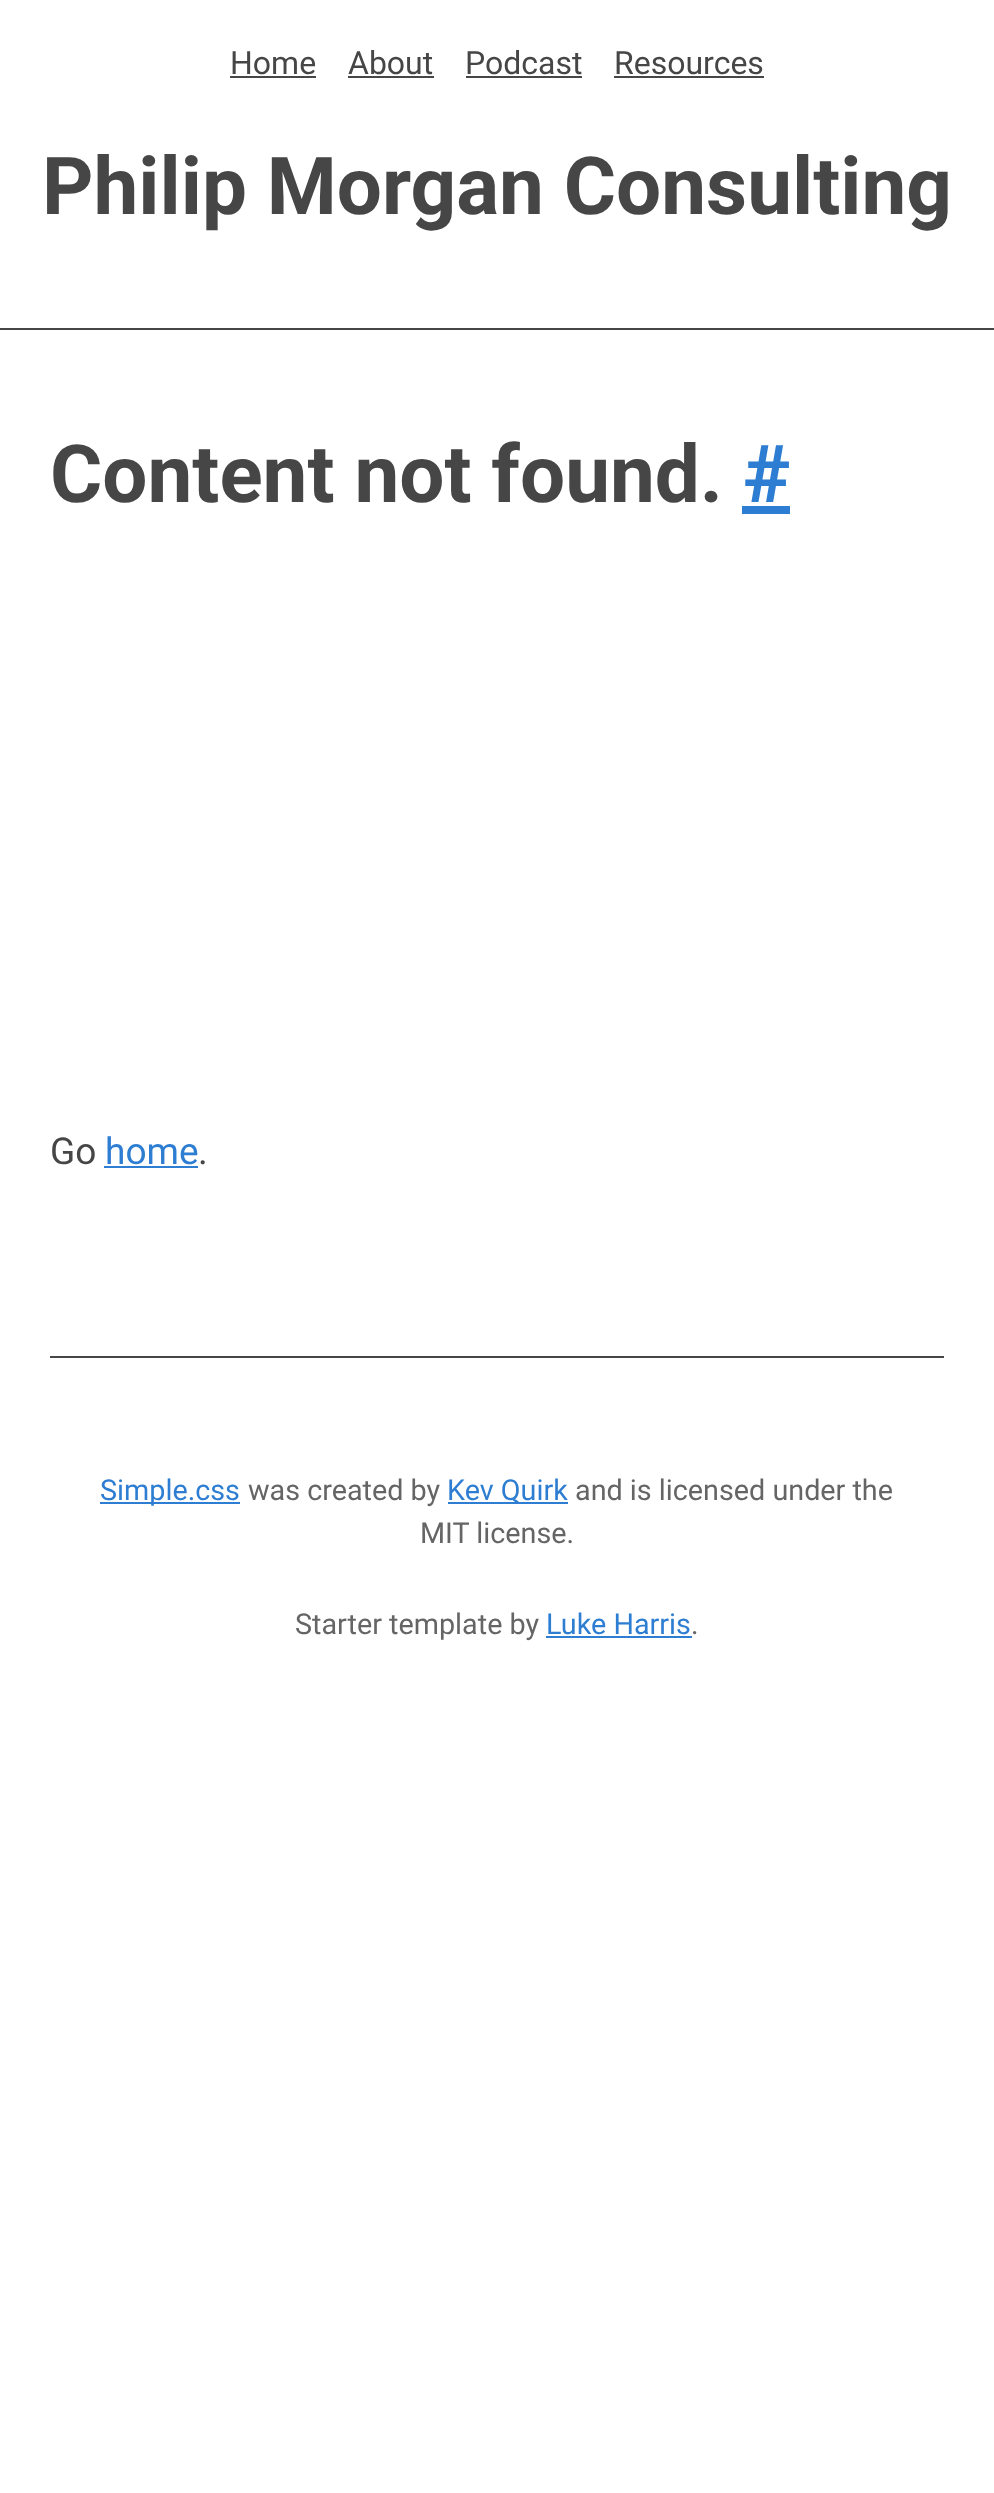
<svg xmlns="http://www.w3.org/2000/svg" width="994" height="2493">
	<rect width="100%" height="100%" fill="#FFFFFF" />
	<rect x="0" y="328" width="994" height="2" fill="#474647" />
	<text x="230" y="74" font-family="Roboto" font-size="32" fill="#474647">Home</text>
	<rect x="230" y="76" width="86" height="2" fill="#474647" />
	<text x="348" y="74" font-family="Roboto" font-size="32" fill="#474647">About</text>
	<rect x="348" y="76" width="86" height="2" fill="#474647" />
	<text x="465" y="74" font-family="Roboto" font-size="32" fill="#474647">Podcast</text>
	<rect x="466" y="76" width="116" height="2" fill="#474647" />
	<text x="614" y="74" font-family="Roboto" font-size="32" fill="#474647">Resources</text>
	<rect x="614" y="76" width="150" height="2" fill="#474647" />
	<g font-family="Roboto" font-size="80" font-weight="700" fill="#474647">
		<text x="42" y="214">Philip Morgan Consulting</text>
		<text x="50" y="502">Content not found.</text>
	</g>
	<text x="743" y="502" font-family="Roboto" font-size="80" font-weight="700" fill="#2D7DD2">#</text>
	<rect x="742" y="506" width="48" height="8" fill="#2D7DD2" />
	<text x="50" y="1164" font-family="Roboto" font-size="37" fill="#474647">Go</text>
	<text x="105" y="1164" font-family="Roboto" font-size="37" fill="#2D7DD2">home</text>
	<rect x="104" y="1166" width="94" height="2" fill="#2D7DD2" />
	<text x="198" y="1164" font-family="Roboto" font-size="37" fill="#474647">.</text>
	<rect x="50" y="1356" width="894" height="2" fill="#474647" />
	<rect x="100" y="1502" width="140" height="2" fill="#2D7DD2" />
	<text x="100" y="1500" font-family="Roboto" font-size="28.75" fill="#2D7DD2">Simple.css</text>
	<text x="248" y="1500" font-family="Roboto" font-size="28.75" fill="#666566">was created by</text>
	<rect x="448" y="1502" width="120" height="2" fill="#2D7DD2" />
	<text x="447" y="1500" font-family="Roboto" font-size="28.75" fill="#2D7DD2">Kev Quirk</text>
	<g font-family="Roboto" font-size="28.75" fill="#666566">
		<text x="575" y="1500">and is licensed under the</text>
		<text x="420" y="1543">MIT license.</text>
		<text x="295" y="1634">Starter template by</text>
	</g>
	<text x="546" y="1634" font-family="Roboto" font-size="28.75" fill="#2D7DD2">Luke Harris</text>
	<rect x="546" y="1636" width="146" height="2" fill="#2D7DD2" />
	<text x="691" y="1634" font-family="Roboto" font-size="28.75" fill="#666566">.</text>
</svg>
